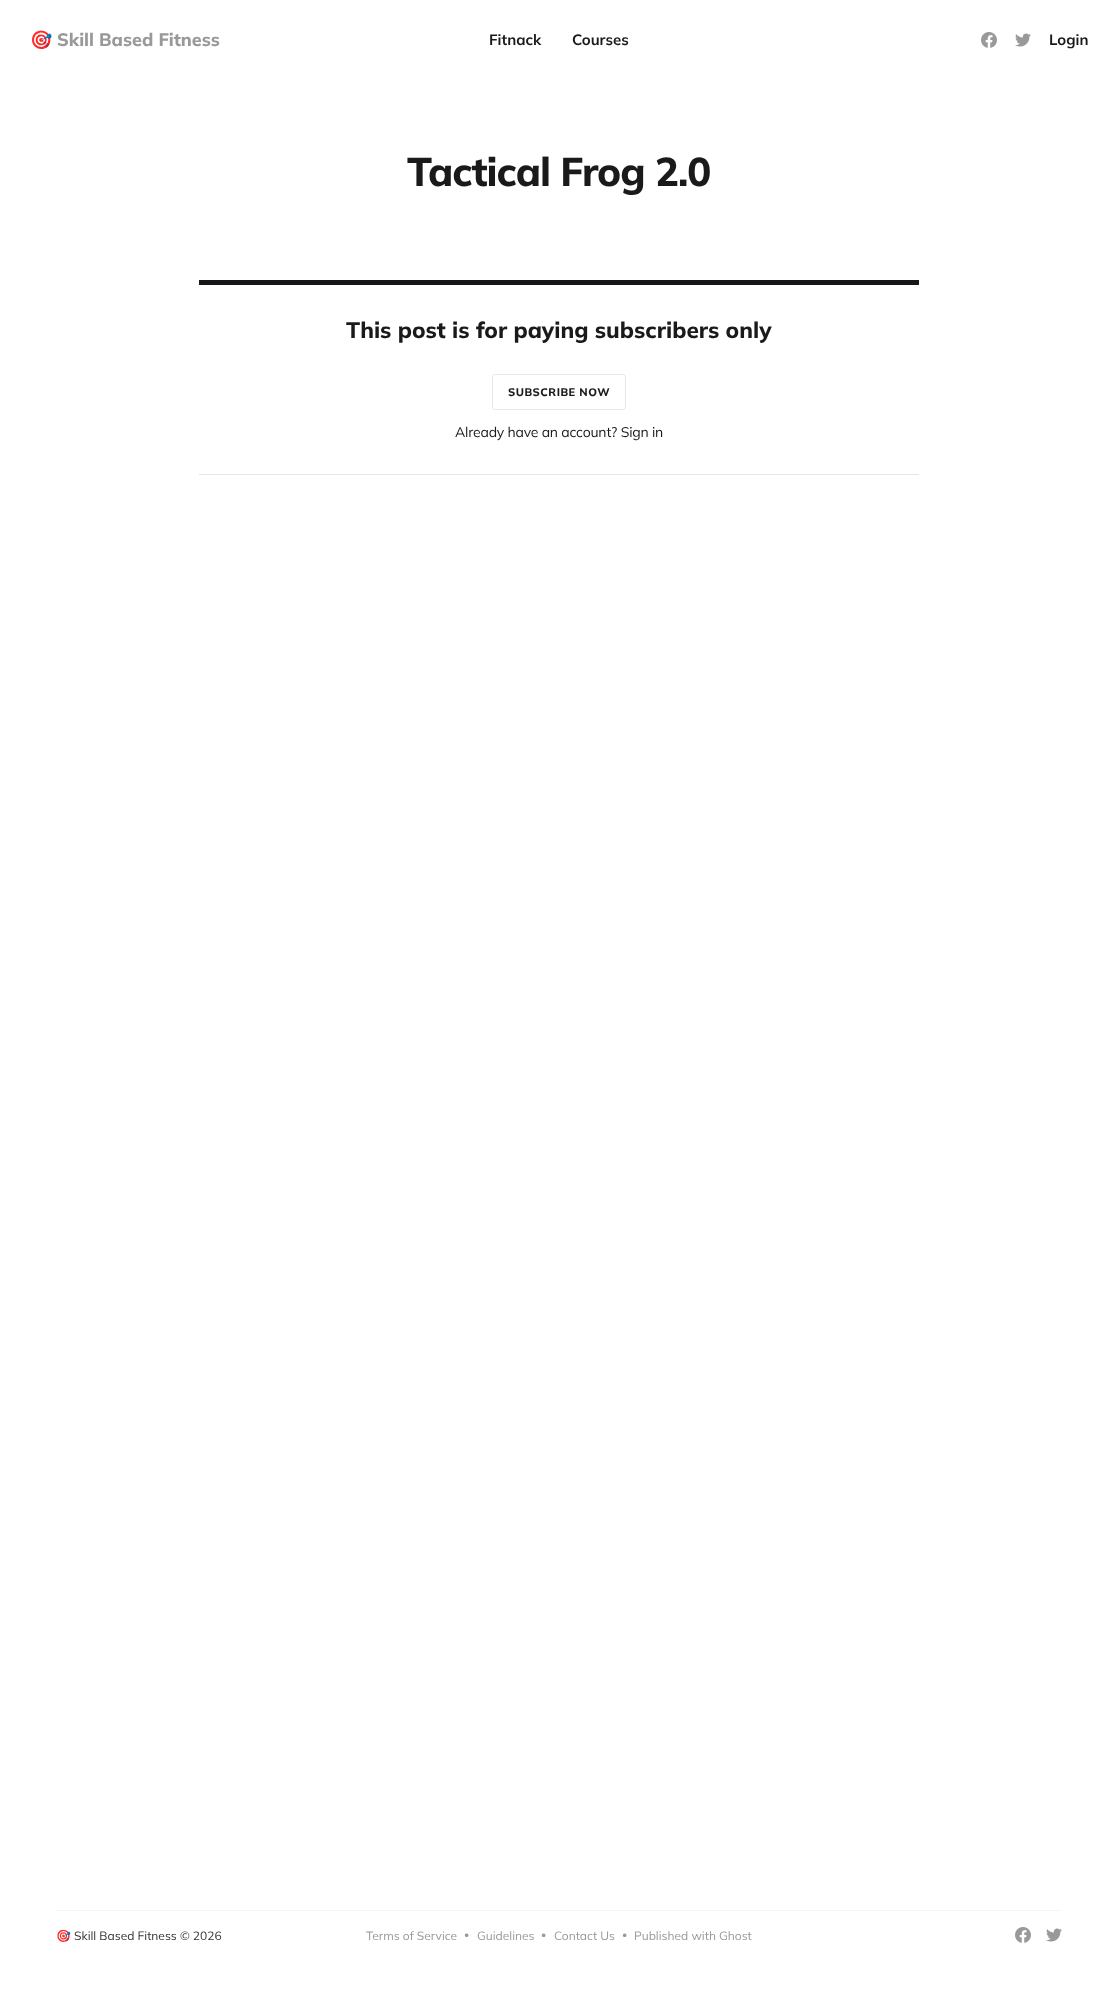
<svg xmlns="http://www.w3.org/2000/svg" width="1118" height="2005">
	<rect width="100%" height="100%" fill="#FFFFFF" />
	<text x="30" y="46" font-family="Noto Color Emoji" font-size="18" font-weight="700" fill="#999999">🎯</text>
	<text x="57" y="46" font-family="Mulish" font-size="18" font-weight="800" fill="#999999">Skill Based Fitness</text>
	<g font-family="Mulish" font-size="15" font-weight="700" fill="#1A1A1A">
		<text x="489" y="45">Fitnack</text>
		<text x="572" y="45">Courses</text>
	</g>
	<image x="981" y="32" width="16" height="16" href="assets/img1.png" />
	<image x="1015" y="33" width="16" height="14" href="assets/img2.png" />
	<text x="1049" y="45" font-family="Mulish" font-size="15" font-weight="700" fill="#1A1A1A">Login</text>
	<text x="407" y="186" font-family="Mulish" font-size="40" font-weight="800" letter-spacing="-1" fill="#1A1A1A">Tactical Frog 2.0</text>
	<rect x="199" y="280" width="720" height="5" fill="#15171A" />
	<rect x="199" y="474" width="720" height="1" fill="#E6E6E6" />
	<text x="346" y="338" font-family="Mulish" font-size="22.5" font-weight="800" fill="#1A1A1A">This post is for paying subscribers only</text>
	<rect x="492.5" y="374.5" width="133" height="35" rx="2.5" fill="none" stroke="#E6E6E6" />
	<text x="508" y="396" font-family="Mulish" font-size="11" font-weight="800" letter-spacing="0.5" fill="#1A1A1A">SUBSCRIBE NOW</text>
	<text x="455" y="437" font-family="Mulish" font-size="14" letter-spacing="-0.2" fill="#1A1A1A">Already have an account? Sign in</text>
	<rect x="56" y="1910" width="1006" height="1" fill="#F6F6F6" />
	<text x="56" y="1940" font-family="Noto Color Emoji" font-size="12" fill="#333333">🎯</text>
	<text x="74" y="1940" font-family="Mulish" font-size="12" fill="#333333">Skill Based Fitness © 2026</text>
	<text x="366" y="1940" font-family="Mulish" font-size="12" fill="#999999">Terms of Service</text>
	<text x="464" y="1938" font-family="Mulish" font-size="10" fill="#999999">•</text>
	<text x="477" y="1940" font-family="Mulish" font-size="12" fill="#999999">Guidelines</text>
	<text x="541" y="1938" font-family="Mulish" font-size="10" fill="#999999">•</text>
	<text x="554" y="1940" font-family="Mulish" font-size="12" fill="#999999">Contact Us</text>
	<text x="622" y="1938" font-family="Mulish" font-size="10" fill="#999999">•</text>
	<text x="634" y="1940" font-family="Mulish" font-size="12" fill="#999999">Published with Ghost</text>
	<image x="1015" y="1927" width="16" height="16" href="assets/img1.png" />
	<image x="1046" y="1928" width="16" height="14" href="assets/img2.png" />
</svg>
